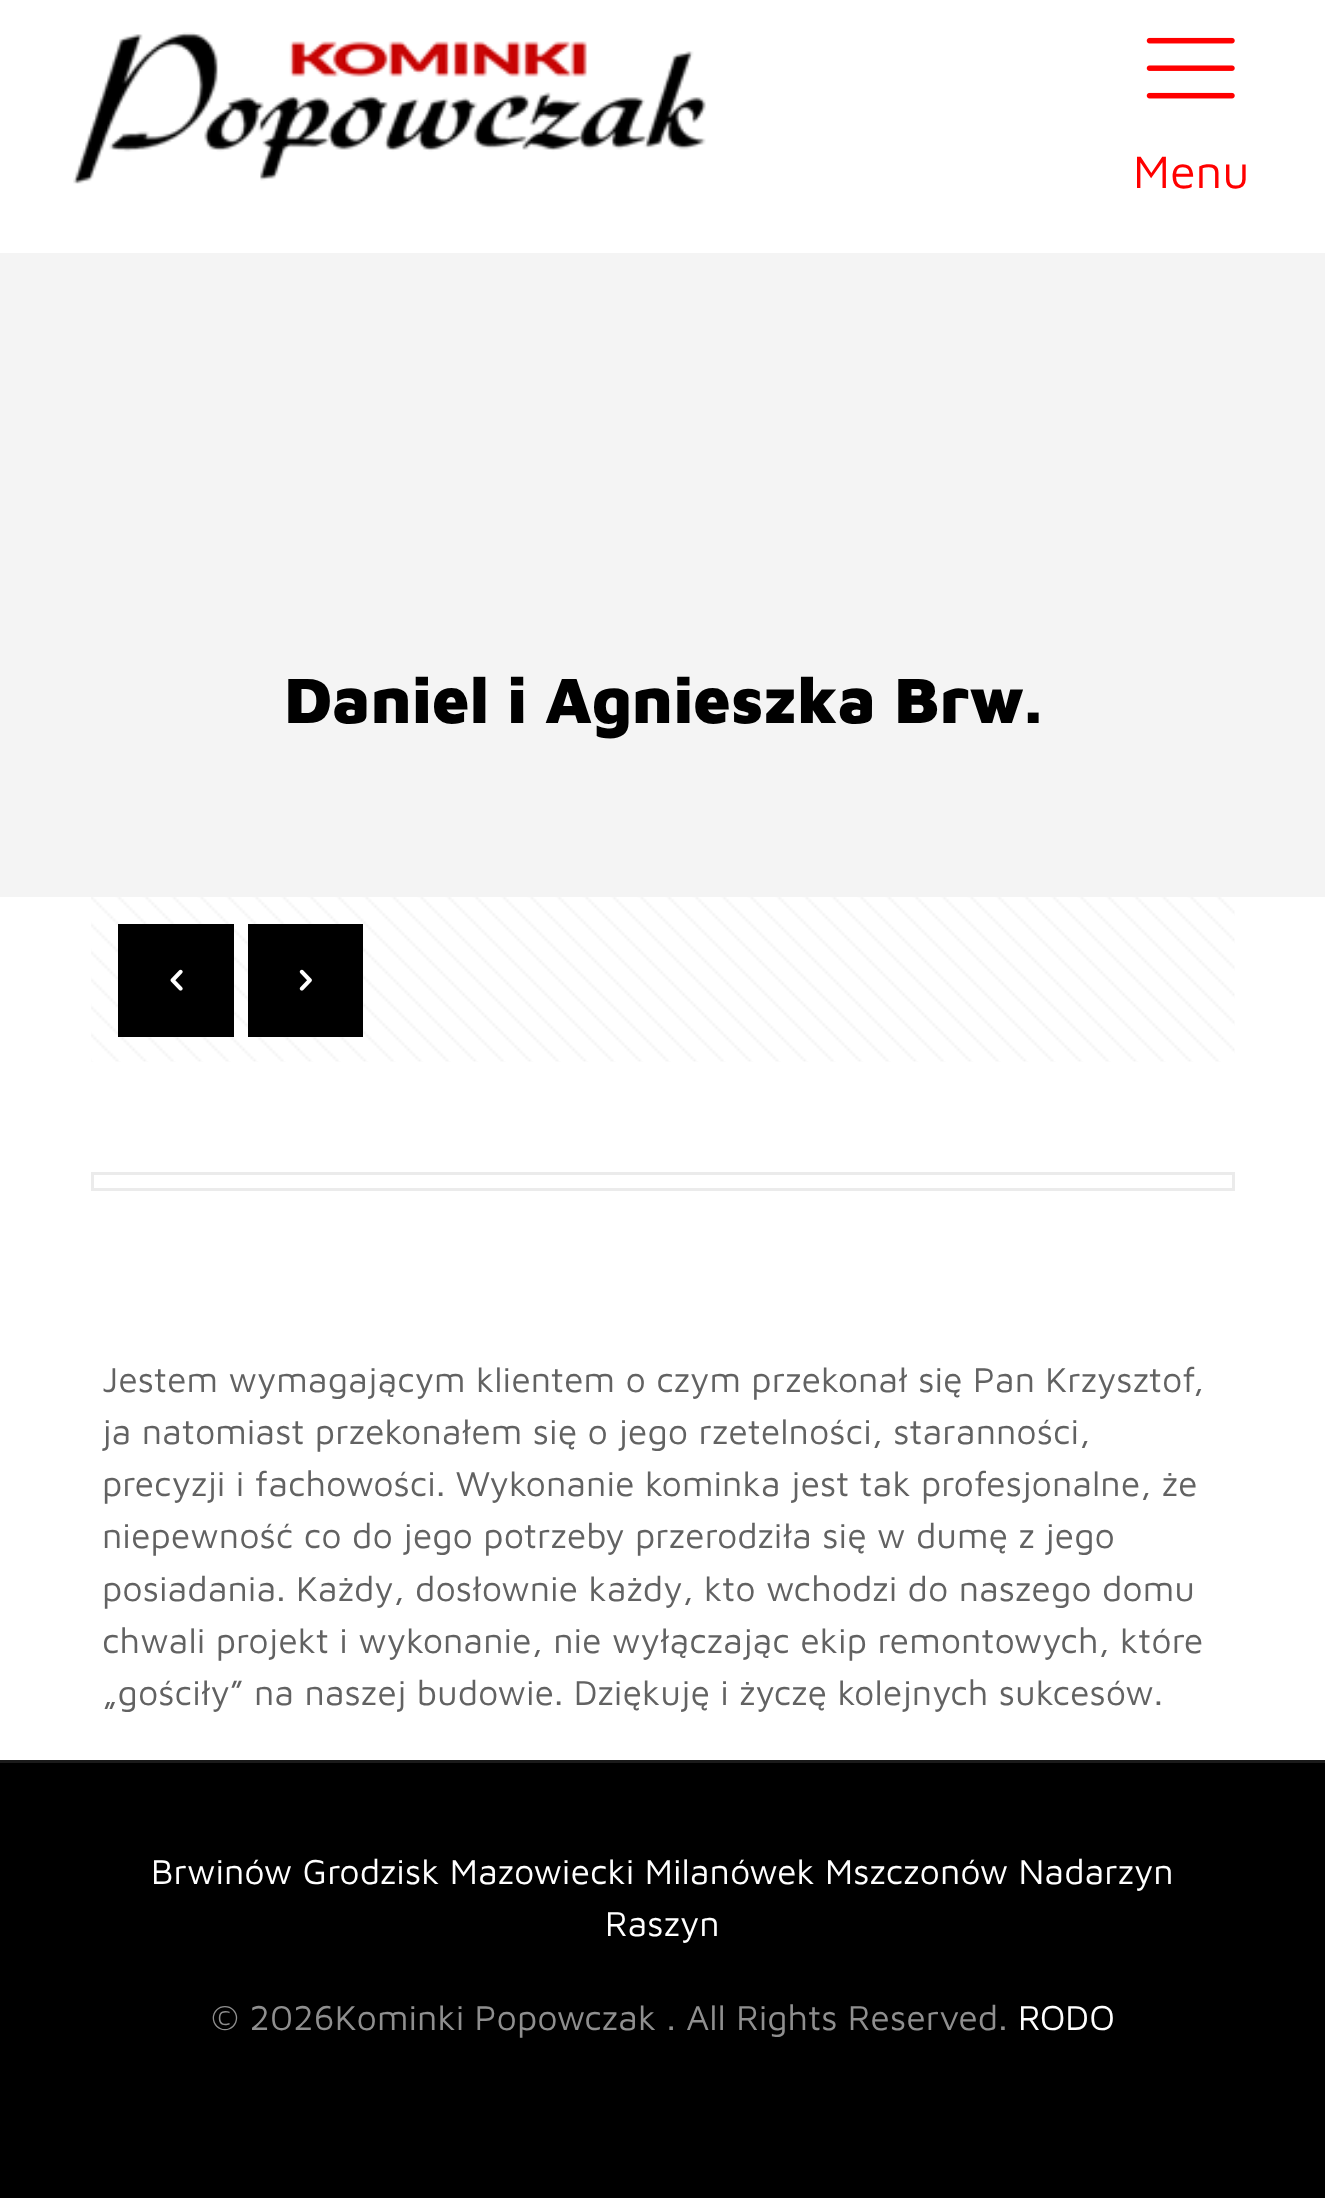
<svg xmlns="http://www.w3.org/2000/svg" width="1325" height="2198">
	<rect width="100%" height="100%" fill="#FFFFFF" />
	<image x="73" y="32" width="633" height="152" href="assets/img1.png" />
	<image x="1146" y="37" width="89" height="62" href="assets/img2.png" />
	<text x="1133" y="188" font-family="Maven Pro" font-size="47" fill="#FF0000">Menu</text>
	<rect x="0" y="253" width="1325" height="644" fill="#F4F4F4" />
	<text x="284" y="723" font-family="Maven Pro" font-size="66" font-weight="900" fill="#000000">Daniel i Agnieszka Brw.</text>
	<image x="91" y="897" width="1144" height="165" href="assets/img3.png" />
	<rect x="118" y="924" width="116" height="113" fill="#000000" />
	<image x="170" y="969" width="13" height="22" href="assets/img4.png" />
	<rect x="248" y="924" width="115" height="113" fill="#000000" />
	<image x="299" y="969" width="13" height="22" href="assets/img5.png" />
	<rect x="92.5" y="1173.5" width="1141" height="16" fill="none" stroke="#EBEBEB" stroke-width="3" />
	<g font-family="Maven Pro" font-size="35.75" fill="#626262">
		<text x="102" y="1392">Jestem wymagającym klientem o czym przekonał się Pan Krzysztof,</text>
		<text x="102" y="1444">ja natomiast przekonałem się o jego rzetelności, staranności,</text>
		<text x="102" y="1496">precyzji i fachowości. Wykonanie kominka jest tak profesjonalne, że</text>
		<text x="102" y="1548">niepewność co do jego potrzeby przerodziła się w dumę z jego</text>
		<text x="102" y="1601">posiadania. Każdy, dosłownie każdy, kto wchodzi do naszego domu</text>
		<text x="102" y="1653">chwali projekt i wykonanie, nie wyłączając ekip remontowych, które</text>
		<text x="102" y="1705">„gościły” na naszej budowie. Dziękuję i życzę kolejnych sukcesów.</text>
	</g>
	<rect x="0" y="1763" width="1325" height="435" fill="#000000" />
	<rect x="0" y="1760" width="1325" height="3" fill="#1A1A1A" />
	<g font-family="Maven Pro" font-size="35.75" fill="#FFFFFF">
		<text x="151" y="1884">Brwinów Grodzisk Mazowiecki Milanówek Mszczonów Nadarzyn</text>
		<text x="605" y="1936">Raszyn</text>
	</g>
	<text x="211" y="2030" font-family="Maven Pro" font-size="35.75" fill="#8F8F8F">© 2026Kominki Popowczak . All Rights Reserved.</text>
	<text x="1018" y="2030" font-family="Maven Pro" font-size="35.75" fill="#FFFFFF">RODO</text>
</svg>
